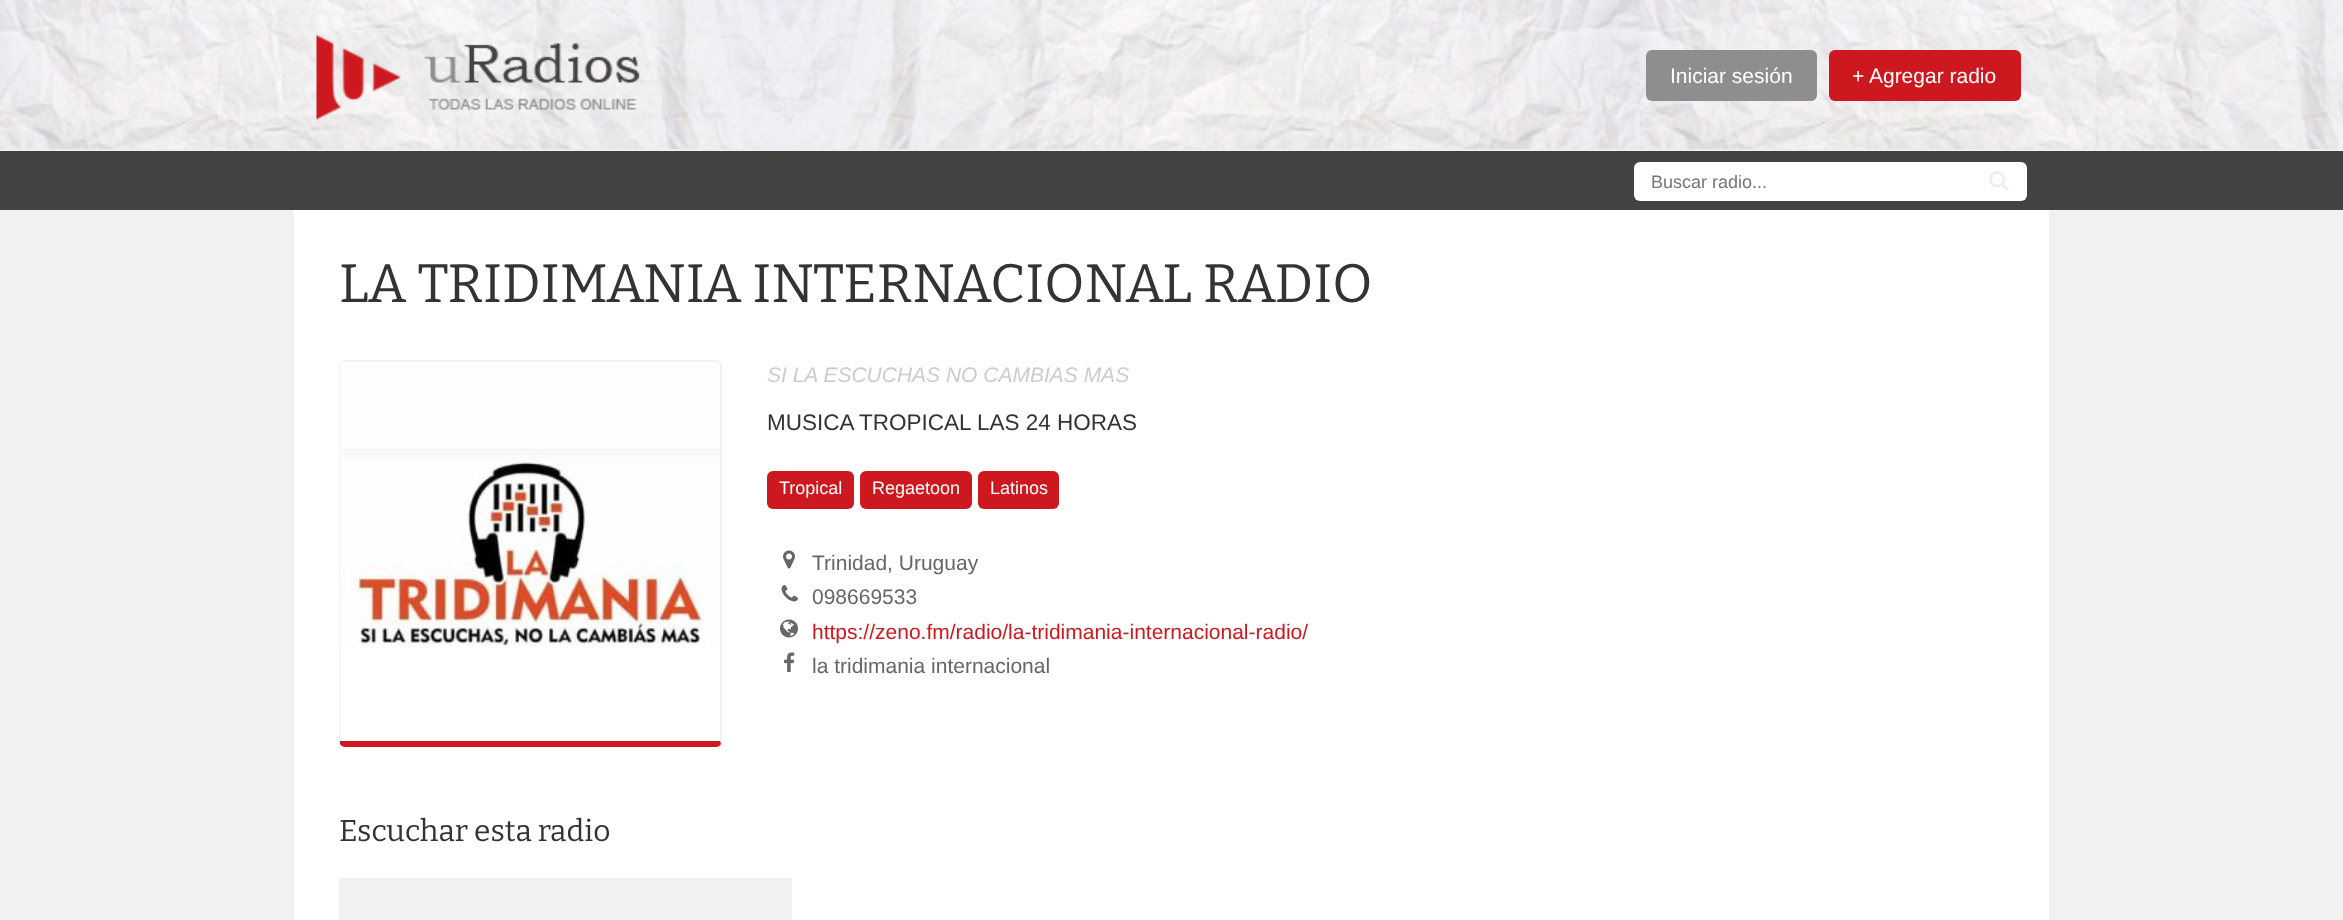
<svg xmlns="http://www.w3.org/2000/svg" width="2343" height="920">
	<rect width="100%" height="100%" fill="#F1F1F1" />
	<image x="0" y="0" width="2343" height="149" href="assets/img1.png" />
	<rect x="0" y="149" width="2343" height="2" fill="#EEEEEE" />
	<image x="316" y="34" width="324" height="86" href="assets/img2.png" />
	<rect x="1646" y="50" width="171" height="51" rx="6" fill="#8E8E8E" />
	<text x="1670" y="83" font-family="Liberation Sans" font-size="21" fill="#FFFFFF">Iniciar sesión</text>
	<rect x="1829" y="50" width="192" height="51" rx="6" fill="#CC181E" />
	<text x="1852" y="83" font-family="Liberation Sans" font-size="21" fill="#FFFFFF">+ Agregar radio</text>
	<rect x="0" y="151" width="2343" height="59" fill="#424242" />
	<rect x="1634" y="162" width="393" height="39" rx="6" fill="#FFFFFF" />
	<text x="1651" y="188" font-family="Liberation Sans" font-size="18" fill="#757575">Buscar radio...</text>
	<image x="1989" y="171" width="20" height="20" href="assets/img3.png" />
	<rect x="294" y="210" width="1755" height="710" fill="#FFFFFF" />
	<text x="339" y="302" font-family="Bitter" font-size="54" fill="#333333">LA TRIDIMANIA INTERNACIONAL RADIO</text>
	<path d="M345 360C344 360 342 361 341 362L342 363L345 362H716L718 363L720 362C719 361 717 360 716 360Z" fill="#F1F1F1" />
	<path d="M722 743L721 744L720 741V366C720 365 719 364 718 363L720 362L722 364Z" fill="#F1F1F1" />
	<path d="M345 747H716C718 747 720 746 721 744L720 741H340V744C341 746 343 747 345 747Z" fill="#CC181E" />
	<path d="M339 366V741L340 744V741V366L342 363L341 362C340 363 339 364 339 366Z" fill="#F1F1F1" />
	<image x="341" y="362" width="379" height="286" href="assets/img4.png" />
	<text x="767" y="382" font-family="Liberation Sans" font-size="21" font-style="italic" fill="#CCCCCC">SI LA ESCUCHAS NO CAMBIAS MAS</text>
	<text x="767" y="430" font-family="Liberation Sans" font-size="22.5" fill="#333333">MUSICA TROPICAL LAS 24 HORAS</text>
	<rect x="767" y="471" width="87" height="38" rx="6" fill="#CC181E" />
	<text x="779" y="494" font-family="Liberation Sans" font-size="18" fill="#FFFFFF">Tropical</text>
	<rect x="860" y="471" width="112" height="38" rx="6" fill="#CC181E" />
	<text x="872" y="494" font-family="Liberation Sans" font-size="18" fill="#FFFFFF">Regaetoon</text>
	<rect x="978" y="471" width="81" height="38" rx="6" fill="#CC181E" />
	<text x="990" y="494" font-family="Liberation Sans" font-size="18" fill="#FFFFFF">Latinos</text>
	<image x="783" y="550" width="12" height="19" href="assets/img5.png" />
	<text x="812" y="570" font-family="Liberation Sans" font-size="21" fill="#666666">Trinidad, Uruguay</text>
	<image x="781" y="585" width="17" height="17" href="assets/img6.png" />
	<text x="812" y="604" font-family="Liberation Sans" font-size="21" fill="#666666">098669533</text>
	<image x="780" y="619" width="18" height="19" href="assets/img7.png" />
	<text x="812" y="639" font-family="Liberation Sans" font-size="21" fill="#CC181E">https://zeno.fm/radio/la-tridimania-internacional-radio/</text>
	<image x="784" y="652" width="11" height="20" href="assets/img8.png" />
	<text x="812" y="673" font-family="Liberation Sans" font-size="21" fill="#666666">la tridimania internacional</text>
	<text x="339" y="841" font-family="Bitter" font-size="30" fill="#333333">Escuchar esta radio</text>
	<rect x="339" y="878" width="453" height="42" fill="#F1F1F1" />
</svg>
